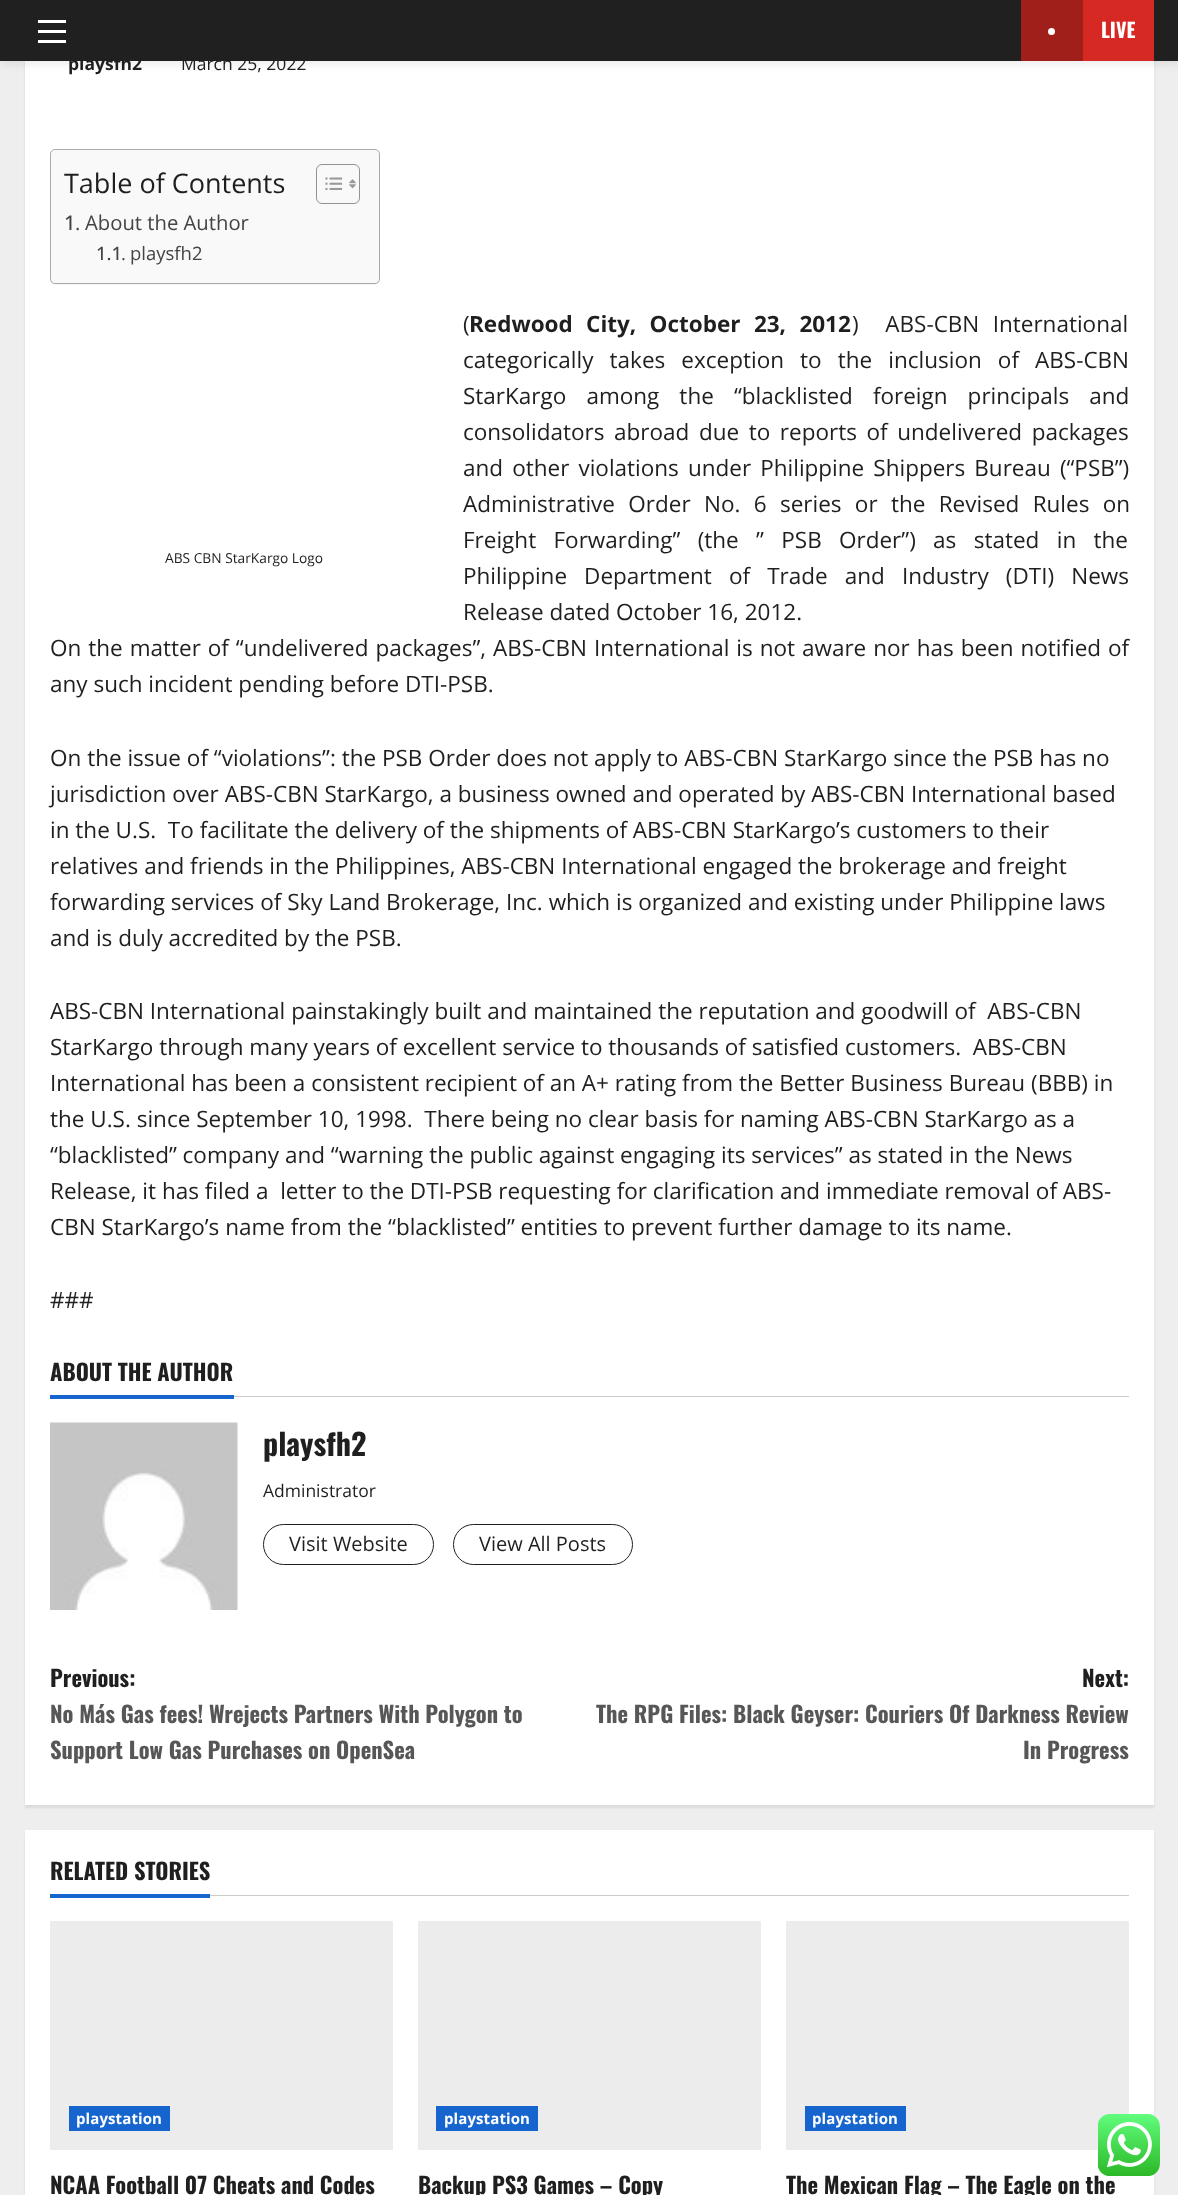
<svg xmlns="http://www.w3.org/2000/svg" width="1178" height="2195">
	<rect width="100%" height="100%" fill="#EEEEEE" />
	<rect x="25" y="-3" width="1129" height="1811" fill="#000000" fill-opacity="0.08" filter="blur(1px)" />
	<rect x="25" y="61" width="1129" height="1744" fill="#FFFFFF" />
	<rect x="0" y="3" width="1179" height="61" fill="#000000" fill-opacity="0.08" filter="blur(5px)" />
	<text x="68" y="70" font-family="Open Sans" font-size="17.5" font-weight="700" fill="#1F1F1F">playsfh2</text>
	<text x="181" y="70" font-family="Open Sans" font-size="17.5" fill="#1F1F1F">March 25, 2022</text>
	<rect x="0" y="0" width="1178" height="61" fill="#202020" />
	<rect x="38" y="30" width="28" height="3" fill="#FFFFFF" />
	<rect x="38" y="20" width="28" height="3" fill="#FFFFFF" />
	<rect x="38" y="40" width="28" height="3" fill="#FFFFFF" />
	<rect x="1083" y="0" width="71" height="61" fill="#D72924" />
	<rect x="1021" y="0" width="62" height="61" fill="#A11F1B" />
	<circle cx="1051.5" cy="31.5" r="3.5" fill="#FFFFFF" />
	<text x="1101" y="38" font-family="Oswald" font-size="20" font-weight="700" fill="#FFFFFF">LIVE</text>
	<rect x="50" y="150" width="330" height="135" rx="5" fill="#000000" fill-opacity="0.05" filter="blur(0.5px)" />
	<rect x="50.5" y="149.5" width="329" height="134" rx="4.5" fill="#F9F9F9" stroke="#AAAAAA" />
	<text x="64" y="193" font-family="Open Sans" font-size="27" fill="#1F1F1F">Table of Contents</text>
	<rect x="316.5" y="164.5" width="43" height="39" rx="5.5" fill="none" stroke="#999191" />
	<image x="325" y="177" width="18" height="13" href="assets/img1.png" />
	<image x="349" y="179" width="7" height="10" href="assets/img2.png" />
	<text x="64" y="230" font-family="Open Sans" font-size="20.25" font-weight="500" fill="#444444">1</text>
	<g font-family="Open Sans" font-size="20.25" fill="#444444">
		<text x="75" y="230">.</text>
		<text x="85" y="230">About the Author</text>
	</g>
	<text x="96" y="260" font-family="Open Sans" font-size="18.5" font-weight="500" fill="#444444">1.1</text>
	<g font-family="Open Sans" font-size="18.5" fill="#444444">
		<text x="121" y="260">.</text>
		<text x="130" y="260">playsfh2</text>
	</g>
	<text x="165" y="563" font-family="Open Sans" font-size="13.75" fill="#1F1F1F">ABS CBN StarKargo Logo</text>
	<text x="463" y="332" font-family="Open Sans" font-size="22.5" fill="#1F1F1F">(</text>
	<text x="469" y="332" word-spacing="7.5" font-family="Open Sans" font-size="22.5" font-weight="700" fill="#1F1F1F">Redwood City, October 23, 2012</text>
	<g font-family="Open Sans" font-size="22.5" fill="#1F1F1F">
		<text x="852" y="332" word-spacing="7.5" xml:space="preserve">)  ABS-CBN International</text>
		<text x="463" y="368" word-spacing="10.25">categorically takes exception to the inclusion of ABS-CBN</text>
		<text x="463" y="404" word-spacing="14.25">StarKargo among the “blacklisted foreign principals and</text>
		<text x="463" y="440" word-spacing="3.75">consolidators abroad due to reports of undelivered packages</text>
		<text x="463" y="476" word-spacing="3.25">and other violations under Philippine Shippers Bureau (“PSB”)</text>
		<text x="463" y="512" word-spacing="7.5">Administrative Order No. 6 series or the Revised Rules on</text>
		<text x="463" y="548" word-spacing="11.5">Freight Forwarding” (the ” PSB Order”) as stated in the</text>
		<text x="463" y="584" word-spacing="11.25">Philippine Department of Trade and Industry (DTI) News</text>
		<text x="463" y="620">Release dated October 16, 2012.</text>
		<text x="50" y="656" word-spacing="1.1">On the matter of “undelivered packages”, ABS-CBN International is not aware nor has been notified of</text>
		<text x="50" y="692">any such incident pending before DTI-PSB.</text>
		<text x="50" y="766">On the issue of “violations”: the PSB Order does not apply to ABS-CBN StarKargo since the PSB has no</text>
		<text x="50" y="802">jurisdiction over ABS-CBN StarKargo, a business owned and operated by ABS-CBN International based</text>
		<text x="50" y="838" xml:space="preserve">in the U.S.  To facilitate the delivery of the shipments of ABS-CBN StarKargo’s customers to their</text>
		<text x="50" y="874">relatives and friends in the Philippines, ABS-CBN International engaged the brokerage and freight</text>
		<text x="50" y="910">forwarding services of Sky Land Brokerage, Inc. which is organized and existing under Philippine laws</text>
		<text x="50" y="946">and is duly accredited by the PSB.</text>
		<text x="50" y="1019" xml:space="preserve">ABS-CBN International painstakingly built and maintained the reputation and goodwill of  ABS-CBN</text>
		<text x="50" y="1055" xml:space="preserve">StarKargo through many years of excellent service to thousands of satisfied customers.  ABS-CBN</text>
		<text x="50" y="1091">International has been a consistent recipient of an A+ rating from the Better Business Bureau (BBB) in</text>
		<text x="50" y="1127" xml:space="preserve">the U.S. since September 10, 1998.  There being no clear basis for naming ABS-CBN StarKargo as a</text>
		<text x="50" y="1163">“blacklisted” company and “warning the public against engaging its services” as stated in the News</text>
		<text x="50" y="1199" xml:space="preserve">Release, it has filed a  letter to the DTI-PSB requesting for clarification and immediate removal of ABS-</text>
		<text x="50" y="1235">CBN StarKargo’s name from the “blacklisted” entities to prevent further damage to its name.</text>
		<text x="50" y="1308">###</text>
	</g>
	<rect x="234" y="1396" width="895" height="1" fill="#CCCCCC" />
	<text x="50" y="1381" font-family="Oswald" font-size="22.5" font-weight="700" fill="#1F1F1F">ABOUT THE AUTHOR</text>
	<rect x="50" y="1395" width="184" height="4" fill="#1665CF" />
	<image x="50" y="1422" width="188" height="188" href="assets/img3.png" />
	<text x="263" y="1456" font-family="Oswald" font-size="30" font-weight="700" fill="#1F1F1F">playsfh2</text>
	<text x="263" y="1497" font-family="Open Sans" font-size="17.5" fill="#1F1F1F">Administrator</text>
	<rect x="263.5" y="1524.5" width="170" height="40" rx="20" fill="none" stroke="#1F1F1F" />
	<text x="289" y="1551" font-family="Open Sans" font-size="20" fill="#1F1F1F">Visit Website</text>
	<rect x="453.5" y="1524.5" width="179" height="40" rx="20" fill="none" stroke="#1F1F1F" />
	<text x="479" y="1551" font-family="Open Sans" font-size="20" fill="#1F1F1F">View All Posts</text>
	<text x="50" y="1687" font-family="Oswald" font-size="22.5" font-weight="700" fill="#1F1F1F">Previous:</text>
	<g font-family="Oswald" font-size="22.5" font-weight="700" fill="#575757">
		<text x="50" y="1723">No Más Gas fees! Wrejects Partners With Polygon to</text>
		<text x="50" y="1759">Support Low Gas Purchases on OpenSea</text>
	</g>
	<text x="1082" y="1687" font-family="Oswald" font-size="22.5" font-weight="700" fill="#1F1F1F">Next:</text>
	<g font-family="Oswald" font-size="22.5" font-weight="700" fill="#575757">
		<text x="596" y="1723">The RPG Files: Black Geyser: Couriers Of Darkness Review</text>
		<text x="1023" y="1759">In Progress</text>
	</g>
	<rect x="25" y="1833" width="1129" height="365" fill="#000000" fill-opacity="0.08" filter="blur(1px)" />
	<rect x="25" y="1830" width="1129" height="365" fill="#FFFFFF" />
	<rect x="210" y="1895" width="919" height="1" fill="#CCCCCC" />
	<text x="50" y="1880" font-family="Oswald" font-size="22.5" font-weight="700" fill="#1F1F1F">RELATED STORIES</text>
	<rect x="50" y="1894" width="160" height="4" fill="#1665CF" />
	<rect x="50" y="1921" width="343" height="229" fill="#ECECEC" />
	<rect x="69" y="2106" width="101" height="25" fill="#1665CF" />
	<text x="76" y="2124" font-family="Open Sans" font-size="15" font-weight="700" letter-spacing="0.1" fill="#FFFFFF">playstation</text>
	<text x="50" y="2194" font-family="Oswald" font-size="22.5" font-weight="700" fill="#1F1F1F">NCAA Football 07 Cheats and Codes</text>
	<rect x="418" y="1921" width="343" height="229" fill="#ECECEC" />
	<rect x="436" y="2106" width="102" height="25" fill="#1665CF" />
	<text x="444" y="2124" font-family="Open Sans" font-size="15" font-weight="700" letter-spacing="0.1" fill="#FFFFFF">playstation</text>
	<text x="418" y="2194" font-family="Oswald" font-size="22.5" font-weight="700" fill="#1F1F1F">Backup PS3 Games – Copy</text>
	<rect x="786" y="1921" width="343" height="229" fill="#ECECEC" />
	<rect x="805" y="2106" width="101" height="25" fill="#1665CF" />
	<text x="812" y="2124" font-family="Open Sans" font-size="15" font-weight="700" letter-spacing="0.1" fill="#FFFFFF">playstation</text>
	<text x="786" y="2194" font-family="Oswald" font-size="22.5" font-weight="700" fill="#1F1F1F">The Mexican Flag – The Eagle on the</text>
	<image x="1098" y="2114" width="62" height="62" href="assets/img4.png" />
</svg>
